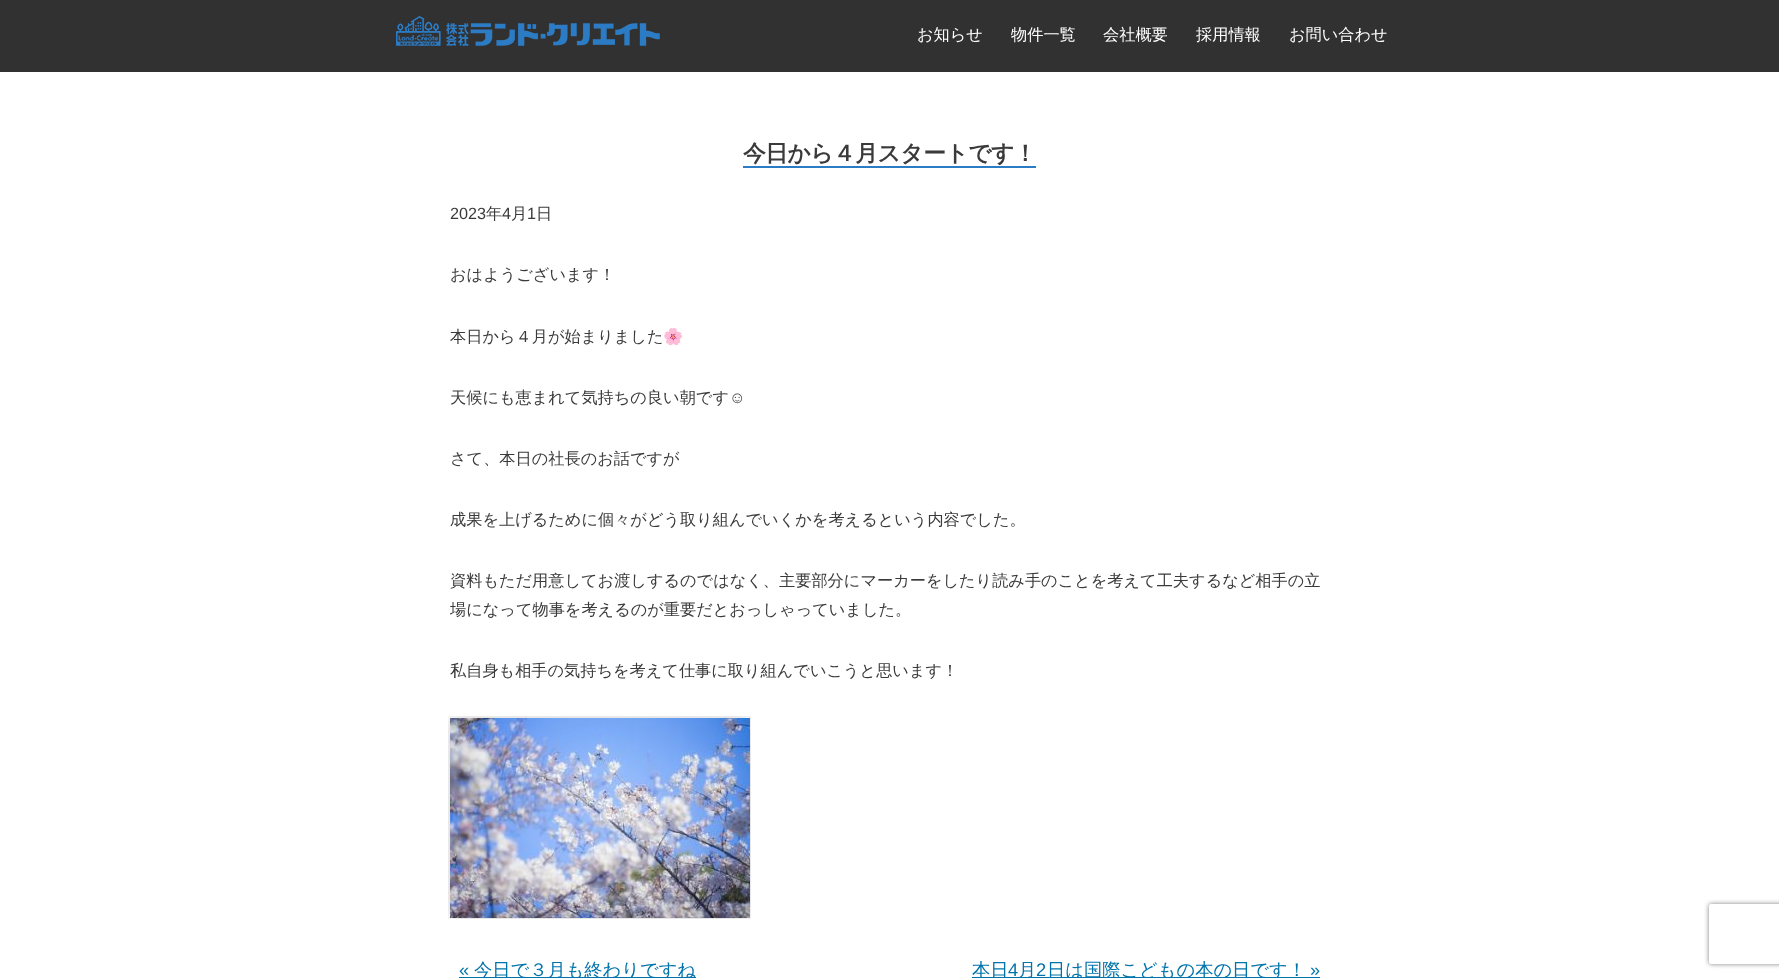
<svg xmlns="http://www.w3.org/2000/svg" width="1779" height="978">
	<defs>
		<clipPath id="clip1"><path d="M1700 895H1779V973H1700ZM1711 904H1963C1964 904 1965 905 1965 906V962C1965 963 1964 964 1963 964H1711C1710 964 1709 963 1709 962V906C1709 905 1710 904 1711 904Z" clip-rule="evenodd" /></clipPath>
	</defs>
	<rect width="100%" height="100%" fill="#FFFFFF" />
	<rect x="0" y="0" width="1779" height="72" fill="#313131" />
	<image x="396" y="16" width="264" height="30" href="assets/img1.png" />
	<g font-family="WenQuanYi Zen Hei" font-size="16.2" font-weight="500" fill="#FFFFFF">
		<text x="917" y="40">お知らせ</text>
		<text x="1011" y="40">物件一覧</text>
		<text x="1103" y="40">会社概要</text>
		<text x="1196" y="40">採用情報</text>
		<text x="1289" y="40">お問い合わせ</text>
	</g>
	<text x="743" y="161" font-family="WenQuanYi Zen Hei" font-size="22.75" font-weight="700" letter-spacing="-0.5" fill="#3A3A3A">今日から４月スタートです！</text>
	<rect x="743" y="166" width="293" height="2" fill="#2C7CC5" />
	<text x="450" y="219" font-family="Liberation Sans" font-size="16.2" fill="#3A3A3A">2023</text>
	<text x="486" y="219" font-family="WenQuanYi Zen Hei" font-size="16.2" font-weight="500" fill="#3A3A3A">年</text>
	<text x="502" y="219" font-family="Liberation Sans" font-size="16.2" fill="#3A3A3A">4</text>
	<text x="511" y="219" font-family="WenQuanYi Zen Hei" font-size="16.2" font-weight="500" fill="#3A3A3A">月</text>
	<text x="527" y="219" font-family="Liberation Sans" font-size="16.2" fill="#3A3A3A">1</text>
	<g font-family="WenQuanYi Zen Hei" font-size="16.2" font-weight="500" fill="#3A3A3A">
		<text x="536" y="219">日</text>
		<text x="450" y="280">おはようございます！</text>
		<text x="450" y="342">本日から４月が始まりました</text>
	</g>
	<text x="663" y="342" font-family="Noto Color Emoji" font-size="16.2" fill="#3A3A3A">🌸</text>
	<text x="450" y="403" font-family="WenQuanYi Zen Hei" font-size="16.2" font-weight="500" fill="#3A3A3A">天候にも恵まれて気持ちの良い朝です</text>
	<text x="729" y="403" font-family="Liberation Sans" font-size="16.2" fill="#3A3A3A">☺</text>
	<g font-family="WenQuanYi Zen Hei" font-size="16.2" font-weight="500" fill="#3A3A3A">
		<text x="450" y="464">さて、本日の社長のお話ですが</text>
		<text x="450" y="525">成果を上げるために個々がどう取り組んでいくかを考えるという内容でした。</text>
		<text x="450" y="586">資料もただ用意してお渡しするのではなく、主要部分にマーカーをしたり読み手のことを考えて工夫するなど相手の立</text>
		<text x="450" y="615">場になって物事を考えるのが重要だとおっしゃっていました。</text>
		<text x="450" y="676">私自身も相手の気持ちを考えて仕事に取り組んでいこうと思います！</text>
	</g>
	<image x="448" y="716" width="303" height="203" href="assets/img2.png" />
	<text x="459" y="976" font-family="Liberation Sans" font-size="18.25" fill="#0073AA">«</text>
	<rect x="459" y="977" width="237" height="1" fill="#0073AA" />
	<text x="474" y="976" font-family="WenQuanYi Zen Hei" font-size="18.25" font-weight="500" fill="#0073AA">今日で３月も終わりですね</text>
	<rect x="972" y="977" width="348" height="1" fill="#0073AA" />
	<text x="972" y="976" font-family="WenQuanYi Zen Hei" font-size="18.25" font-weight="500" fill="#0073AA">本日</text>
	<text x="1008" y="976" font-family="Liberation Sans" font-size="18.25" fill="#0073AA">4</text>
	<text x="1018" y="976" font-family="WenQuanYi Zen Hei" font-size="18.25" font-weight="500" fill="#0073AA">月</text>
	<text x="1036" y="976" font-family="Liberation Sans" font-size="18.25" fill="#0073AA">2</text>
	<text x="1047" y="976" font-family="WenQuanYi Zen Hei" font-size="18.25" font-weight="500" fill="#0073AA">日は国際こどもの本の日です！</text>
	<text x="1310" y="976" font-family="Liberation Sans" font-size="18.25" fill="#0073AA">»</text>
	<g clip-path="url(#clip1)">
		<rect x="1709" y="904" width="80" height="60" rx="2" fill="#808080" filter="blur(2.5px)" />
	</g>
</svg>
